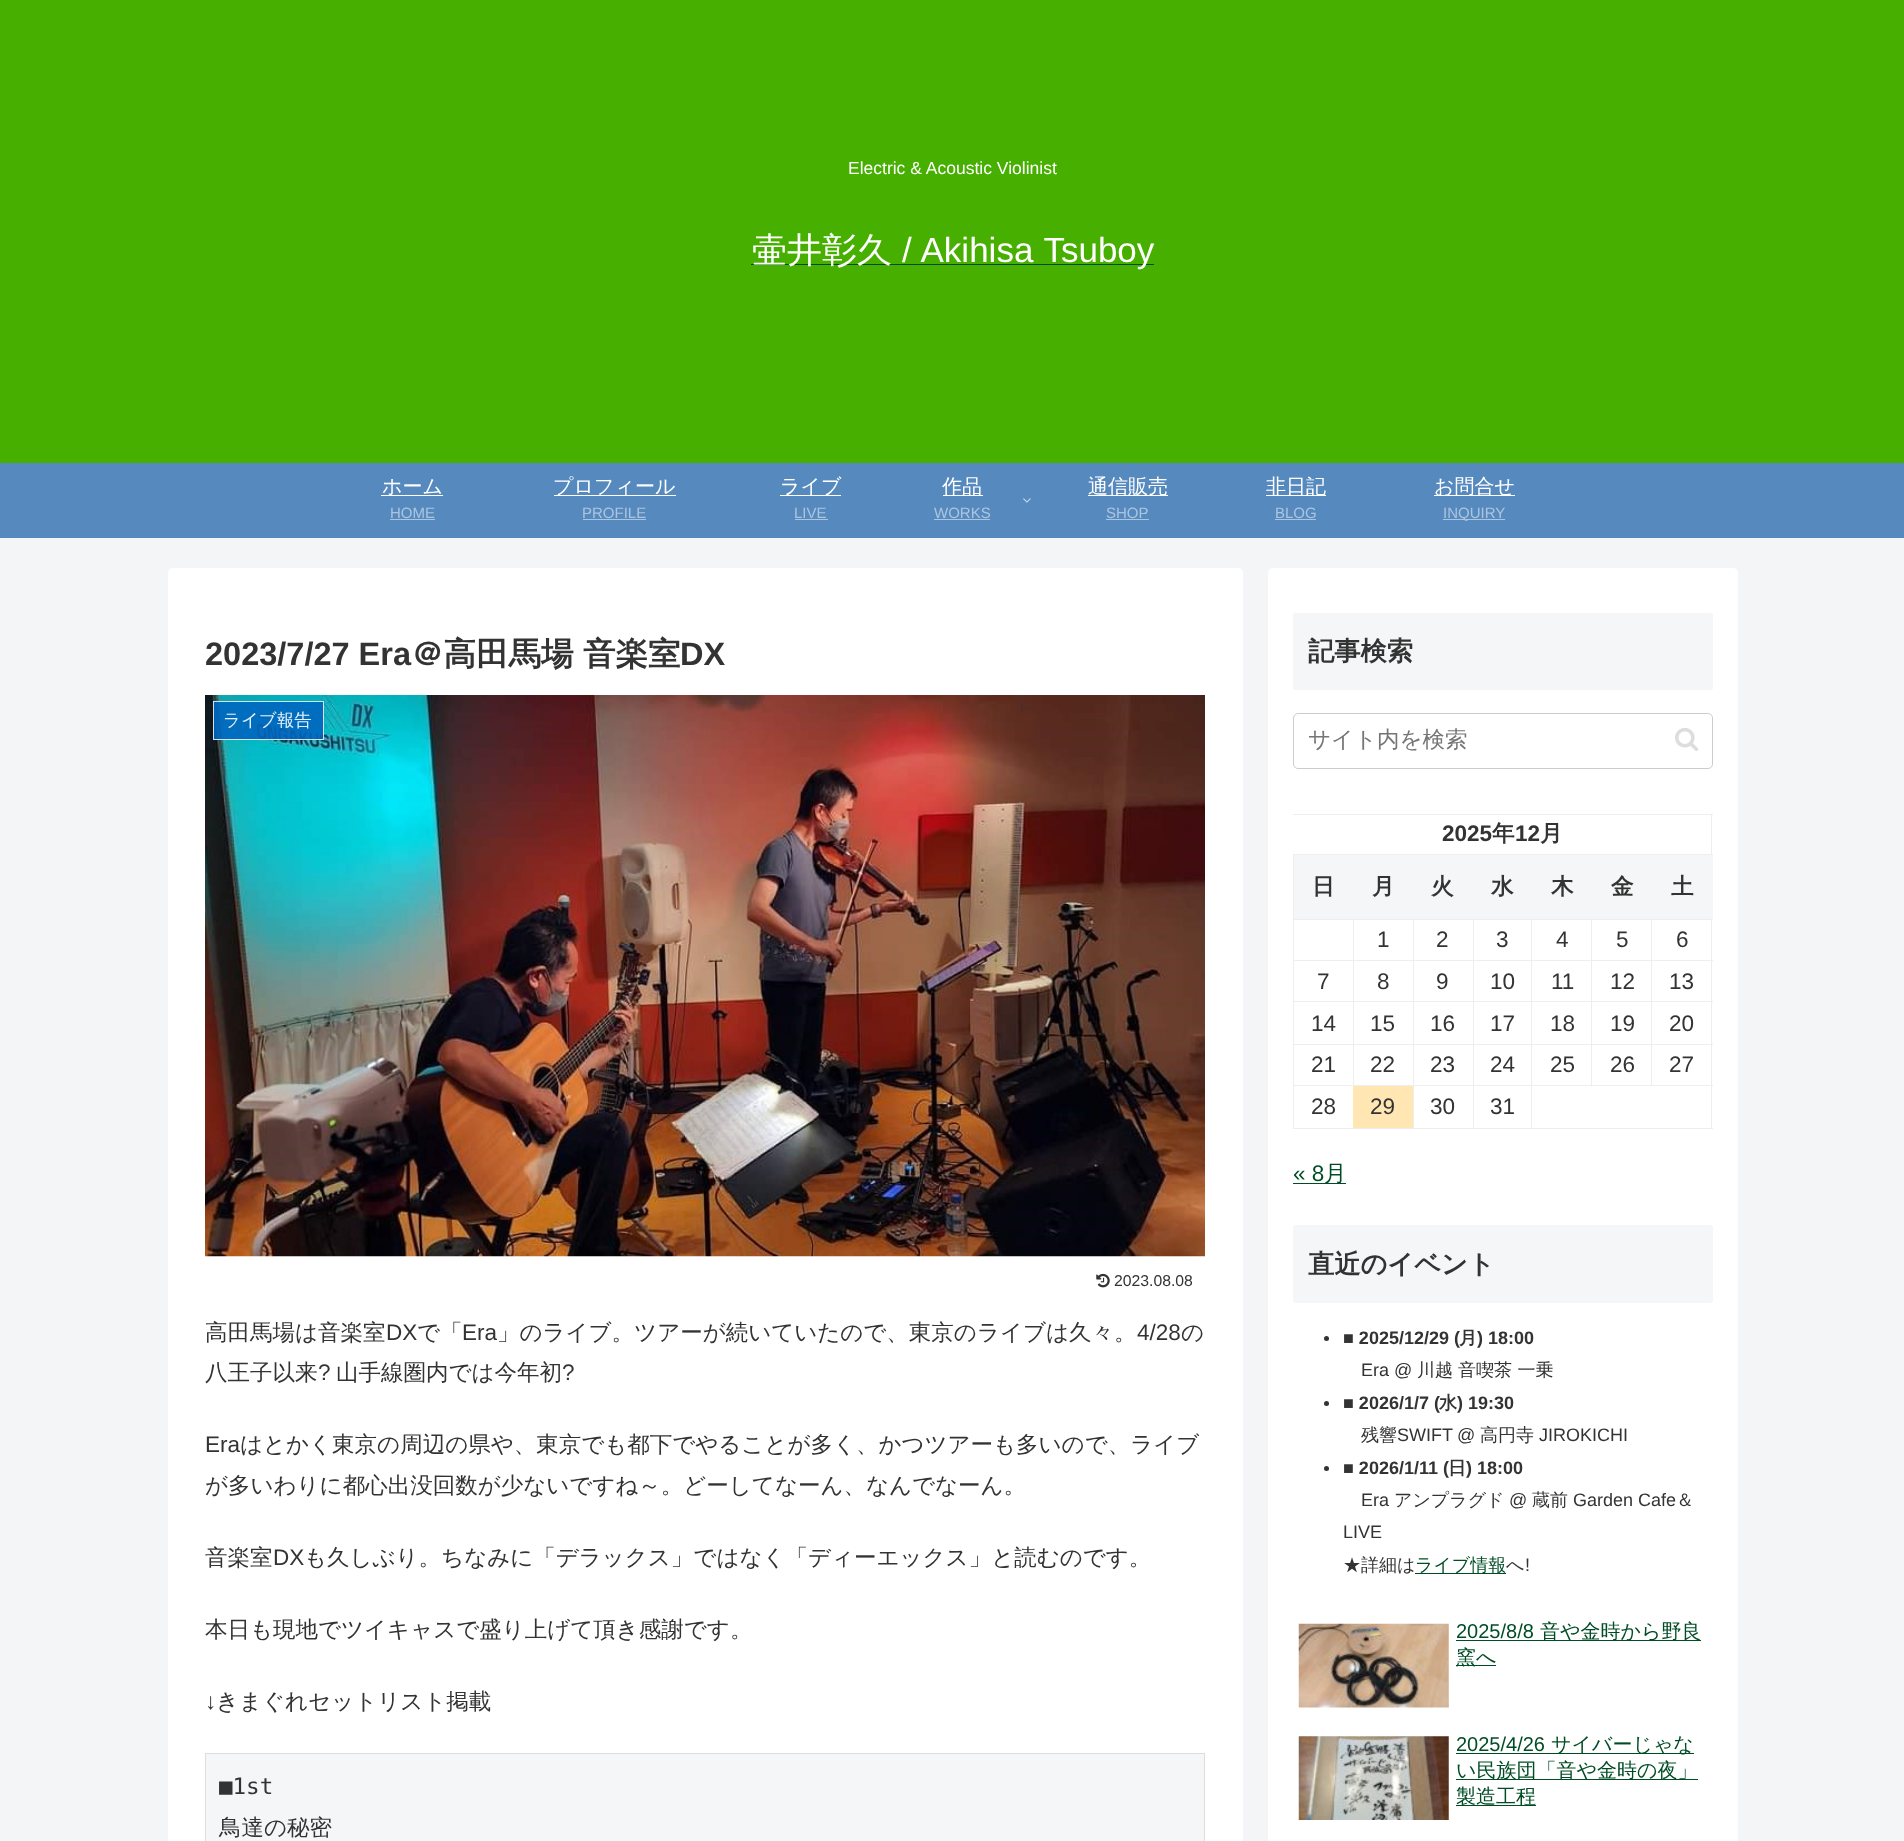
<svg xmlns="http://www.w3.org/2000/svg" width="1904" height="1841">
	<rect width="100%" height="100%" fill="#F4F5F7" />
	<rect x="0" y="0" width="1904" height="463" fill="#46AF00" />
	<text x="848" y="174" font-family="Liberation Sans" font-size="17.5" fill="#FFFFFF">Electric &amp; Acoustic Violinist</text>
	<rect x="751" y="264" width="403" height="1" fill="#004D25" />
	<text x="752" y="262" font-family="WenQuanYi Zen Hei" font-size="35" font-weight="500" fill="#FFFFFF">壷井彰久</text>
	<text x="902" y="262" word-spacing="1" font-family="Liberation Sans" font-size="35" fill="#FFFFFF">/ Akihisa Tsuboy</text>
	<rect x="0" y="463" width="1904" height="75" fill="#568ABF" />
	<rect x="381" y="495" width="62" height="1" fill="#FFFFFF" />
	<text x="382" y="493" font-family="WenQuanYi Zen Hei" font-size="20" font-weight="500" fill="#FFFFFF">ホーム</text>
	<text x="390" y="518" font-family="Liberation Sans" font-size="15" fill="#ABC5DF">HOME</text>
	<rect x="390" y="519" width="45" height="1" fill="#ABC5DF" />
	<rect x="554" y="495" width="122" height="1" fill="#FFFFFF" />
	<text x="553" y="493" font-family="WenQuanYi Zen Hei" font-size="20" font-weight="500" fill="#FFFFFF">プロフィール</text>
	<text x="582" y="518" font-family="Liberation Sans" font-size="15" fill="#ABC5DF">PROFILE</text>
	<rect x="583" y="519" width="63" height="1" fill="#ABC5DF" />
	<rect x="780" y="495" width="61" height="1" fill="#FFFFFF" />
	<text x="780" y="493" font-family="WenQuanYi Zen Hei" font-size="20" font-weight="500" fill="#FFFFFF">ライブ</text>
	<text x="794" y="518" font-family="Liberation Sans" font-size="15" fill="#ABC5DF">LIVE</text>
	<rect x="795" y="519" width="33" height="1" fill="#ABC5DF" />
	<rect x="943" y="495" width="40" height="1" fill="#FFFFFF" />
	<text x="942" y="493" font-family="WenQuanYi Zen Hei" font-size="20" font-weight="500" fill="#FFFFFF">作品</text>
	<text x="934" y="518" font-family="Liberation Sans" font-size="15" fill="#ABC5DF">WORKS</text>
	<rect x="934" y="519" width="56" height="1" fill="#ABC5DF" />
	<image x="1023" y="498" width="8" height="5" href="assets/img1.png" />
	<rect x="1088" y="495" width="80" height="1" fill="#FFFFFF" />
	<text x="1088" y="493" font-family="WenQuanYi Zen Hei" font-size="20" font-weight="500" fill="#FFFFFF">通信販売</text>
	<text x="1106" y="518" font-family="Liberation Sans" font-size="15" fill="#ABC5DF">SHOP</text>
	<rect x="1106" y="519" width="43" height="1" fill="#ABC5DF" />
	<rect x="1266" y="495" width="60" height="1" fill="#FFFFFF" />
	<text x="1266" y="493" font-family="WenQuanYi Zen Hei" font-size="20" font-weight="500" fill="#FFFFFF">非日記</text>
	<text x="1275" y="518" font-family="Liberation Sans" font-size="15" fill="#ABC5DF">BLOG</text>
	<rect x="1275" y="519" width="41" height="1" fill="#ABC5DF" />
	<rect x="1434" y="495" width="81" height="1" fill="#FFFFFF" />
	<text x="1434" y="493" font-family="WenQuanYi Zen Hei" font-size="20" font-weight="500" fill="#FFFFFF">お問合せ</text>
	<rect x="1443" y="519" width="62" height="1" fill="#ABC5DF" />
	<text x="1443" y="518" font-family="Liberation Sans" font-size="15" fill="#ABC5DF">INQUIRY</text>
	<rect x="168" y="568" width="1075" height="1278" rx="5" fill="#FFFFFF" />
	<text x="205" y="665" font-family="Liberation Sans" font-size="32.5" font-weight="700" fill="#333333">2023/7/27 Era</text>
	<g font-family="WenQuanYi Zen Hei" font-size="32.5" font-weight="700" fill="#333333">
		<text x="411" y="665">＠高田馬場</text>
		<text x="583" y="665">音楽室</text>
	</g>
	<text x="680" y="665" font-family="Liberation Sans" font-size="32.5" font-weight="700" fill="#333333">DX</text>
	<image x="205" y="695" width="1000" height="562" href="assets/img2.png" />
	<rect x="213" y="701" width="111" height="39" fill="#0066BF" fill-opacity="0.9" />
	<rect x="213.5" y="701.5" width="110" height="38" fill="none" stroke="#EEEEEE" stroke-opacity="0.9" />
	<text x="223" y="726" font-family="WenQuanYi Zen Hei" font-size="17.5" font-weight="500" fill="#E6F0F9">ライブ報告</text>
	<image x="1096" y="1273" width="14" height="15" href="assets/img3.png" />
	<text x="1114" y="1286" font-family="Liberation Sans" font-size="15.75" fill="#333333">2023.08.08</text>
	<text x="205" y="1340" font-family="WenQuanYi Zen Hei" font-size="22.5" font-weight="500" fill="#333333">高田馬場は音楽室</text>
	<text x="386" y="1340" font-family="Liberation Sans" font-size="22.5" fill="#333333">DX</text>
	<text x="417" y="1340" font-family="WenQuanYi Zen Hei" font-size="22.5" font-weight="500" fill="#333333">で「</text>
	<text x="462" y="1340" font-family="Liberation Sans" font-size="22.5" fill="#333333">Era</text>
	<text x="497" y="1340" font-family="WenQuanYi Zen Hei" font-size="22.5" font-weight="500" fill="#333333">」のライブ。ツアーが続いていたので、東京のライブは久々。</text>
	<text x="1137" y="1340" font-family="Liberation Sans" font-size="22.5" fill="#333333">4/28</text>
	<g font-family="WenQuanYi Zen Hei" font-size="22.5" font-weight="500" fill="#333333">
		<text x="1181" y="1340">の</text>
		<text x="205" y="1380">八王子以来</text>
	</g>
	<text x="318" y="1380" font-family="Liberation Sans" font-size="22.5" fill="#333333">?</text>
	<text x="336" y="1380" font-family="WenQuanYi Zen Hei" font-size="22.5" font-weight="500" fill="#333333">山手線圏内では今年初</text>
	<g font-family="Liberation Sans" font-size="22.5" fill="#333333">
		<text x="562" y="1380">?</text>
		<text x="205" y="1452">Era</text>
	</g>
	<g font-family="WenQuanYi Zen Hei" font-size="22.5" font-weight="500" fill="#333333">
		<text x="240" y="1452">はとかく東京の周辺の県や、東京でも都下でやることが多く、かつツアーも多いので、ライブ</text>
		<text x="205" y="1493">が多いわりに都心出没回数が少ないですね～。どーしてなーん、なんでなーん。</text>
		<text x="205" y="1565">音楽室</text>
	</g>
	<text x="273" y="1565" font-family="Liberation Sans" font-size="22.5" fill="#333333">DX</text>
	<g font-family="WenQuanYi Zen Hei" font-size="22.5" font-weight="500" fill="#333333">
		<text x="304" y="1565">も久しぶり。ちなみに「デラックス」ではなく「ディーエックス」と読むのです。</text>
		<text x="205" y="1637">本日も現地でツイキャスで盛り上げて頂き感謝です。</text>
	</g>
	<text x="205" y="1709" font-family="Liberation Sans" font-size="22.5" fill="#333333">↓</text>
	<text x="216" y="1709" font-family="WenQuanYi Zen Hei" font-size="22.5" font-weight="500" fill="#333333">きまぐれセットリスト掲載</text>
	<rect x="205.5" y="1753.5" width="999" height="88" fill="#F5F6F7" stroke="#DDDDDD" />
	<text x="219" y="1794" font-family="DejaVu Sans Mono" font-size="22.5" fill="#333333">■1st</text>
	<text x="219" y="1835" font-family="WenQuanYi Zen Hei" font-size="22.5" font-weight="500" fill="#333333">鳥達の秘密</text>
	<rect x="1268" y="568" width="470" height="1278" rx="5" fill="#FFFFFF" />
	<rect x="1293" y="613" width="420" height="77" rx="2.5" fill="#F5F6F7" />
	<text x="1308" y="660" font-family="WenQuanYi Zen Hei" font-size="26.25" font-weight="700" fill="#333333">記事検索</text>
	<rect x="1293.5" y="713.5" width="419" height="55" rx="4.5" fill="none" stroke="#CCCCCC" />
	<text x="1308" y="747" font-family="WenQuanYi Zen Hei" font-size="22.5" font-weight="500" fill="#757575">サイト内を検索</text>
	<image x="1675" y="728" width="24" height="23" href="assets/img4.png" />
	<rect x="1293" y="814" width="420" height="1" fill="#EEEEEE" />
	<rect x="1711" y="814" width="1" height="315" fill="#EEEEEE" />
	<text x="1442" y="841" font-family="Liberation Sans" font-size="22.5" font-weight="700" fill="#333333">2025</text>
	<text x="1492" y="841" font-family="WenQuanYi Zen Hei" font-size="22.5" font-weight="700" fill="#333333">年</text>
	<text x="1515" y="841" font-family="Liberation Sans" font-size="22.5" font-weight="700" fill="#333333">12</text>
	<text x="1540" y="841" font-family="WenQuanYi Zen Hei" font-size="22.5" font-weight="700" fill="#333333">月</text>
	<rect x="1293" y="854" width="420" height="1" fill="#EEEEEE" />
	<rect x="1651" y="919" width="62" height="1" fill="#EEEEEE" />
	<rect x="1651" y="960" width="62" height="1" fill="#EEEEEE" />
	<rect x="1651" y="1001" width="62" height="1" fill="#EEEEEE" />
	<rect x="1651" y="1044" width="62" height="1" fill="#EEEEEE" />
	<rect x="1531" y="1085" width="182" height="1" fill="#EEEEEE" />
	<rect x="1651" y="1044" width="1" height="42" fill="#EEEEEE" />
	<rect x="1591" y="1044" width="62" height="1" fill="#EEEEEE" />
	<rect x="1651" y="1001" width="1" height="44" fill="#EEEEEE" />
	<rect x="1591" y="1001" width="62" height="1" fill="#EEEEEE" />
	<rect x="1651" y="960" width="1" height="43" fill="#EEEEEE" />
	<rect x="1591" y="960" width="62" height="1" fill="#EEEEEE" />
	<rect x="1651" y="919" width="1" height="42" fill="#EEEEEE" />
	<rect x="1591" y="919" width="62" height="1" fill="#EEEEEE" />
	<rect x="1591" y="1044" width="1" height="42" fill="#EEEEEE" />
	<rect x="1531" y="1044" width="62" height="1" fill="#EEEEEE" />
	<rect x="1591" y="1001" width="1" height="44" fill="#EEEEEE" />
	<rect x="1531" y="1001" width="62" height="1" fill="#EEEEEE" />
	<rect x="1591" y="960" width="1" height="43" fill="#EEEEEE" />
	<rect x="1531" y="960" width="62" height="1" fill="#EEEEEE" />
	<rect x="1591" y="919" width="1" height="42" fill="#EEEEEE" />
	<rect x="1531" y="919" width="62" height="1" fill="#EEEEEE" />
	<rect x="1531" y="1128" width="182" height="1" fill="#EEEEEE" />
	<rect x="1531" y="1085" width="1" height="44" fill="#EEEEEE" />
	<rect x="1473" y="1085" width="60" height="1" fill="#EEEEEE" />
	<rect x="1531" y="1044" width="1" height="42" fill="#EEEEEE" />
	<rect x="1473" y="1044" width="60" height="1" fill="#EEEEEE" />
	<rect x="1531" y="1001" width="1" height="44" fill="#EEEEEE" />
	<rect x="1473" y="1001" width="60" height="1" fill="#EEEEEE" />
	<rect x="1531" y="960" width="1" height="43" fill="#EEEEEE" />
	<rect x="1473" y="960" width="60" height="1" fill="#EEEEEE" />
	<rect x="1531" y="919" width="1" height="42" fill="#EEEEEE" />
	<rect x="1473" y="919" width="60" height="1" fill="#EEEEEE" />
	<rect x="1473" y="1128" width="60" height="1" fill="#EEEEEE" />
	<rect x="1473" y="1085" width="1" height="44" fill="#EEEEEE" />
	<rect x="1413" y="1085" width="61" height="1" fill="#EEEEEE" />
	<rect x="1473" y="1044" width="1" height="42" fill="#EEEEEE" />
	<rect x="1413" y="1044" width="61" height="1" fill="#EEEEEE" />
	<rect x="1473" y="1001" width="1" height="44" fill="#EEEEEE" />
	<rect x="1413" y="1001" width="61" height="1" fill="#EEEEEE" />
	<rect x="1473" y="960" width="1" height="43" fill="#EEEEEE" />
	<rect x="1413" y="960" width="61" height="1" fill="#EEEEEE" />
	<rect x="1473" y="919" width="1" height="42" fill="#EEEEEE" />
	<rect x="1413" y="919" width="61" height="1" fill="#EEEEEE" />
	<rect x="1413" y="1128" width="61" height="1" fill="#EEEEEE" />
	<rect x="1413" y="1085" width="1" height="44" fill="#EEEEEE" />
	<rect x="1293" y="1085" width="121" height="1" fill="#EEEEEE" />
	<rect x="1413" y="1044" width="1" height="42" fill="#EEEEEE" />
	<rect x="1353" y="1044" width="61" height="1" fill="#EEEEEE" />
	<rect x="1413" y="1001" width="1" height="44" fill="#EEEEEE" />
	<rect x="1353" y="1001" width="61" height="1" fill="#EEEEEE" />
	<rect x="1413" y="960" width="1" height="43" fill="#EEEEEE" />
	<rect x="1353" y="960" width="61" height="1" fill="#EEEEEE" />
	<rect x="1413" y="919" width="1" height="42" fill="#EEEEEE" />
	<rect x="1353" y="919" width="61" height="1" fill="#EEEEEE" />
	<rect x="1353" y="1044" width="1" height="42" fill="#EEEEEE" />
	<rect x="1293" y="1044" width="61" height="1" fill="#EEEEEE" />
	<rect x="1353" y="1001" width="1" height="44" fill="#EEEEEE" />
	<rect x="1293" y="1001" width="61" height="1" fill="#EEEEEE" />
	<rect x="1353" y="960" width="1" height="43" fill="#EEEEEE" />
	<rect x="1293" y="960" width="61" height="1" fill="#EEEEEE" />
	<rect x="1353" y="919" width="1" height="42" fill="#EEEEEE" />
	<rect x="1293" y="919" width="61" height="1" fill="#EEEEEE" />
	<rect x="1293" y="1128" width="121" height="1" fill="#EEEEEE" />
	<rect x="1293" y="1085" width="1" height="44" fill="#EEEEEE" />
	<rect x="1293" y="1044" width="1" height="42" fill="#EEEEEE" />
	<rect x="1293" y="1001" width="1" height="44" fill="#EEEEEE" />
	<rect x="1293" y="960" width="1" height="43" fill="#EEEEEE" />
	<rect x="1293" y="919" width="1" height="42" fill="#EEEEEE" />
	<rect x="1293" y="854" width="1" height="66" fill="#EEEEEE" />
	<rect x="1294" y="855" width="419" height="64" fill="#F5F6F7" />
	<g font-family="WenQuanYi Zen Hei" font-size="22.5" font-weight="700" fill="#333333">
		<text x="1312" y="894">日</text>
		<text x="1372" y="894">月</text>
		<text x="1431" y="894">火</text>
		<text x="1491" y="894">水</text>
		<text x="1551" y="894">木</text>
		<text x="1611" y="894">金</text>
		<text x="1671" y="894">土</text>
	</g>
	<g font-family="Liberation Sans" font-size="22.5" fill="#333333">
		<text x="1377" y="947">1</text>
		<text x="1436" y="947">2</text>
		<text x="1496" y="947">3</text>
		<text x="1556" y="947">4</text>
		<text x="1616" y="947">5</text>
		<text x="1676" y="947">6</text>
		<text x="1317" y="989">7</text>
		<text x="1377" y="989">8</text>
		<text x="1436" y="989">9</text>
		<text x="1490" y="989">10</text>
		<text x="1551" y="989">11</text>
		<text x="1610" y="989">12</text>
		<text x="1669" y="989">13</text>
		<text x="1311" y="1031">14</text>
		<text x="1370" y="1031">15</text>
		<text x="1430" y="1031">16</text>
		<text x="1490" y="1031">17</text>
		<text x="1550" y="1031">18</text>
		<text x="1610" y="1031">19</text>
		<text x="1669" y="1031">20</text>
		<text x="1311" y="1072">21</text>
		<text x="1370" y="1072">22</text>
		<text x="1430" y="1072">23</text>
		<text x="1490" y="1072">24</text>
		<text x="1550" y="1072">25</text>
		<text x="1610" y="1072">26</text>
		<text x="1669" y="1072">27</text>
		<text x="1311" y="1114">28</text>
	</g>
	<rect x="1353" y="1086" width="60" height="42" fill="#FFE6B2" />
	<g font-family="Liberation Sans" font-size="22.5" fill="#333333">
		<text x="1370" y="1114">29</text>
		<text x="1430" y="1114">30</text>
		<text x="1490" y="1114">31</text>
	</g>
	<text x="1293" y="1181" font-family="Liberation Sans" font-size="22.5" fill="#004D25">« 8</text>
	<rect x="1293" y="1183" width="53" height="1" fill="#004D25" />
	<text x="1324" y="1181" font-family="WenQuanYi Zen Hei" font-size="22.5" font-weight="500" fill="#004D25">月</text>
	<rect x="1293" y="1225" width="420" height="78" rx="2.5" fill="#F5F6F7" />
	<text x="1308" y="1273" font-family="WenQuanYi Zen Hei" font-size="26.25" font-weight="700" fill="#333333">直近のイベント</text>
	<circle cx="1326.5" cy="1338.5" r="2.5" fill="#333333" />
	<text x="1343" y="1344" font-family="Liberation Sans" font-size="18" font-weight="700" fill="#333333">■ 2025/12/29 (</text>
	<text x="1459" y="1344" font-family="WenQuanYi Zen Hei" font-size="18" font-weight="700" fill="#333333">月</text>
	<text x="1477" y="1344" font-family="Liberation Sans" font-size="18" font-weight="700" fill="#333333">) 18:00</text>
	<text x="1361" y="1376" font-family="Liberation Sans" font-size="18" fill="#333333">Era @</text>
	<g font-family="WenQuanYi Zen Hei" font-size="18" font-weight="500" fill="#333333">
		<text x="1417" y="1376">川越</text>
		<text x="1458" y="1376">音喫茶 一乗</text>
	</g>
	<circle cx="1326.5" cy="1403.5" r="2.5" fill="#333333" />
	<text x="1343" y="1409" font-family="Liberation Sans" font-size="18" font-weight="700" fill="#333333">■ 2026/1/7 (</text>
	<text x="1439" y="1409" font-family="WenQuanYi Zen Hei" font-size="18" font-weight="700" fill="#333333">水</text>
	<text x="1457" y="1409" font-family="Liberation Sans" font-size="18" font-weight="700" fill="#333333">) 19:30</text>
	<text x="1361" y="1441" font-family="WenQuanYi Zen Hei" font-size="18" font-weight="500" fill="#333333">残響</text>
	<g font-family="Liberation Sans" font-size="18" fill="#333333">
		<text x="1397" y="1441">SWIFT</text>
		<text x="1457" y="1441">@</text>
	</g>
	<text x="1480" y="1441" font-family="WenQuanYi Zen Hei" font-size="18" font-weight="500" fill="#333333">高円寺</text>
	<text x="1539" y="1441" font-family="Liberation Sans" font-size="18" fill="#333333">JIROKICHI</text>
	<circle cx="1326.5" cy="1468.5" r="2.5" fill="#333333" />
	<text x="1343" y="1474" font-family="Liberation Sans" font-size="18" font-weight="700" fill="#333333">■ 2026/1/11 (</text>
	<text x="1448" y="1474" font-family="WenQuanYi Zen Hei" font-size="18" font-weight="700" fill="#333333">日</text>
	<text x="1466" y="1474" font-family="Liberation Sans" font-size="18" font-weight="700" fill="#333333">) 18:00</text>
	<text x="1361" y="1506" font-family="Liberation Sans" font-size="18" fill="#333333">Era</text>
	<text x="1394" y="1506" font-family="WenQuanYi Zen Hei" font-size="18" font-weight="500" fill="#333333">アンプラグド</text>
	<text x="1509" y="1506" font-family="Liberation Sans" font-size="18" fill="#333333">@</text>
	<text x="1532" y="1506" font-family="WenQuanYi Zen Hei" font-size="18" font-weight="500" fill="#333333">蔵前</text>
	<text x="1573" y="1506" font-family="Liberation Sans" font-size="18" fill="#333333">Garden Cafe</text>
	<text x="1676" y="1506" font-family="WenQuanYi Zen Hei" font-size="18" font-weight="500" fill="#333333">＆</text>
	<text x="1343" y="1538" font-family="Liberation Sans" font-size="18" fill="#333333">LIVE</text>
	<text x="1343" y="1571" font-family="WenQuanYi Zen Hei" font-size="18" font-weight="500" fill="#333333">★詳細は</text>
	<rect x="1415" y="1573" width="91" height="1" fill="#004D25" />
	<text x="1415" y="1571" font-family="WenQuanYi Zen Hei" font-size="18" font-weight="500" fill="#004D25">ライブ情報</text>
	<text x="1506" y="1571" font-family="WenQuanYi Zen Hei" font-size="18" font-weight="500" fill="#333333">へ</text>
	<text x="1525" y="1571" font-family="Liberation Sans" font-size="18" fill="#333333">!</text>
	<image x="1298" y="1623" width="151" height="85" href="assets/img5.png" />
	<text x="1456" y="1638" font-family="Liberation Sans" font-size="20" fill="#004D25">2025/8/8</text>
	<rect x="1456" y="1640" width="245" height="1" fill="#004D25" />
	<text x="1540" y="1638" font-family="WenQuanYi Zen Hei" font-size="20" font-weight="500" fill="#004D25">音や金時から野良</text>
	<rect x="1456" y="1665" width="40" height="1" fill="#004D25" />
	<text x="1456" y="1664" font-family="WenQuanYi Zen Hei" font-size="20" font-weight="500" fill="#004D25">窯へ</text>
	<image x="1298" y="1736" width="151" height="84" href="assets/img6.png" />
	<text x="1456" y="1751" font-family="Liberation Sans" font-size="20" fill="#004D25">2025/4/26</text>
	<rect x="1456" y="1753" width="238" height="1" fill="#004D25" />
	<text x="1551" y="1751" font-family="WenQuanYi Zen Hei" font-size="20" font-weight="500" fill="#004D25">サイバーじゃな</text>
	<rect x="1456" y="1779" width="242" height="1" fill="#004D25" />
	<text x="1456" y="1777" font-family="WenQuanYi Zen Hei" font-size="20" font-weight="500" fill="#004D25">い民族団「音や金時の夜」</text>
	<rect x="1456" y="1805" width="80" height="1" fill="#004D25" />
	<text x="1456" y="1803" font-family="WenQuanYi Zen Hei" font-size="20" font-weight="500" fill="#004D25">製造工程</text>
</svg>
